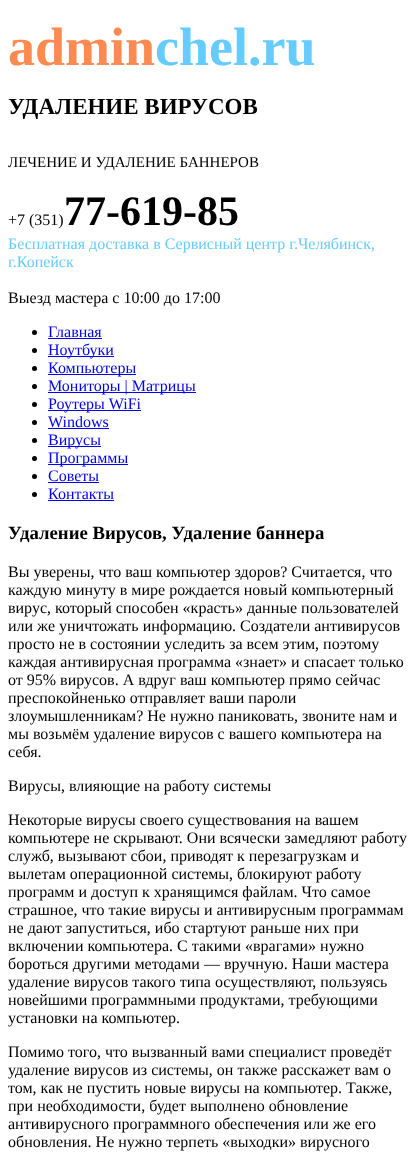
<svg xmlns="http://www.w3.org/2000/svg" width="417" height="1159">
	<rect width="100%" height="100%" fill="#FFFFFF" />
	<text x="8" y="65" font-family="Liberation Serif" font-size="54" font-weight="700" fill="#FD8A50">admin</text>
	<text x="155" y="65" font-family="Liberation Serif" font-size="54" font-weight="700" fill="#66CCFF">chel.ru</text>
	<text x="8" y="114" font-family="Liberation Serif" font-size="23" font-weight="700" fill="#000000">УДАЛЕНИЕ ВИРУСОВ</text>
	<text x="8" y="167" font-family="Liberation Serif" font-size="15" fill="#000000">ЛЕЧЕНИЕ И УДАЛЕНИЕ БАННЕРОВ</text>
	<text x="8" y="225" font-family="Liberation Serif" font-size="16" fill="#000000">+7 (351)</text>
	<text x="64" y="225" font-family="Liberation Serif" font-size="42" font-weight="700" fill="#000000">77-619-85</text>
	<g font-family="Liberation Serif" font-size="16" fill="#66CCFF">
		<text x="8" y="249">Бесплатная доставка в Сервисный центр г.Челябинск,</text>
		<text x="8" y="267">г.Копейск</text>
	</g>
	<text x="8" y="303" font-family="Liberation Serif" font-size="16" fill="#000000">Выезд мастера с 10:00 до 17:00</text>
	<circle cx="34.5" cy="332.5" r="2.5" fill="#000000" />
	<text x="48" y="337" font-family="Liberation Serif" font-size="16" fill="#0000EE">Главная</text>
	<rect x="48" y="338" width="54" height="1" fill="#0000EE" />
	<circle cx="34.5" cy="350.5" r="2.5" fill="#000000" />
	<rect x="48" y="356" width="66" height="1" fill="#0000EE" />
	<text x="48" y="355" font-family="Liberation Serif" font-size="16" fill="#0000EE">Ноутбуки</text>
	<circle cx="34.5" cy="368.5" r="2.5" fill="#000000" />
	<rect x="48" y="374" width="88" height="1" fill="#0000EE" />
	<text x="48" y="373" font-family="Liberation Serif" font-size="16" fill="#0000EE">Компьютеры</text>
	<circle cx="34.5" cy="386.5" r="2.5" fill="#000000" />
	<rect x="48" y="392" width="148" height="1" fill="#0000EE" />
	<text x="48" y="391" font-family="Liberation Serif" font-size="16" fill="#0000EE">Мониторы | Матрицы</text>
	<circle cx="34.5" cy="404.5" r="2.5" fill="#000000" />
	<rect x="48" y="410" width="93" height="1" fill="#0000EE" />
	<text x="48" y="409" font-family="Liberation Serif" font-size="16" fill="#0000EE">Роутеры WiFi</text>
	<circle cx="34.5" cy="422.5" r="2.5" fill="#000000" />
	<text x="48" y="427" font-family="Liberation Serif" font-size="16" fill="#0000EE">Windows</text>
	<rect x="48" y="428" width="61" height="1" fill="#0000EE" />
	<circle cx="34.5" cy="440.5" r="2.5" fill="#000000" />
	<rect x="48" y="446" width="53" height="1" fill="#0000EE" />
	<text x="48" y="445" font-family="Liberation Serif" font-size="16" fill="#0000EE">Вирусы</text>
	<circle cx="34.5" cy="458.5" r="2.5" fill="#000000" />
	<rect x="48" y="464" width="80" height="1" fill="#0000EE" />
	<text x="48" y="463" font-family="Liberation Serif" font-size="16" fill="#0000EE">Программы</text>
	<circle cx="34.5" cy="476.5" r="2.5" fill="#000000" />
	<text x="48" y="481" font-family="Liberation Serif" font-size="16" fill="#0000EE">Советы</text>
	<rect x="48" y="482" width="51" height="1" fill="#0000EE" />
	<circle cx="34.5" cy="494.5" r="2.5" fill="#000000" />
	<text x="48" y="499" font-family="Liberation Serif" font-size="16" fill="#0000EE">Контакты</text>
	<rect x="48" y="500" width="66" height="1" fill="#0000EE" />
	<text x="8" y="539" font-family="Liberation Serif" font-size="18.75" font-weight="700" fill="#000000">Удаление Вирусов, Удаление баннера</text>
	<g font-family="Liberation Serif" font-size="16" fill="#000000">
		<text x="8" y="577">Вы уверены, что ваш компьютер здоров? Считается, что</text>
		<text x="8" y="595">каждую минуту в мире рождается новый компьютерный</text>
		<text x="8" y="613">вирус, который способен «красть» данные пользователей</text>
		<text x="8" y="631">или же уничтожать информацию. Создатели антивирусов</text>
		<text x="8" y="649">просто не в состоянии уследить за всем этим, поэтому</text>
		<text x="8" y="667">каждая антивирусная программа «знает» и спасает только</text>
		<text x="8" y="685">от 95% вирусов. А вдруг ваш компьютер прямо сейчас</text>
		<text x="8" y="703">преспокойненько отправляет ваши пароли</text>
		<text x="8" y="721">злоумышленникам? Не нужно паниковать, звоните нам и</text>
		<text x="8" y="739">мы возьмём удаление вирусов с вашего компьютера на</text>
		<text x="8" y="757">себя.</text>
		<text x="8" y="791">Вирусы, влияющие на работу системы</text>
		<text x="8" y="825">Некоторые вирусы своего существования на вашем</text>
		<text x="8" y="843">компьютере не скрывают. Они всячески замедляют работу</text>
		<text x="8" y="861">служб, вызывают сбои, приводят к перезагрузкам и</text>
		<text x="8" y="879">вылетам операционной системы, блокируют работу</text>
		<text x="8" y="897">программ и доступ к хранящимся файлам. Что самое</text>
		<text x="8" y="915">страшное, что такие вирусы и антивирусным программам</text>
		<text x="8" y="933">не дают запуститься, ибо стартуют раньше них при</text>
		<text x="8" y="951">включении компьютера. С такими «врагами» нужно</text>
		<text x="8" y="969">бороться другими методами — вручную. Наши мастера</text>
		<text x="8" y="987">удаление вирусов такого типа осуществляют, пользуясь</text>
		<text x="8" y="1005">новейшими программными продуктами, требующими</text>
		<text x="8" y="1023">установки на компьютер.</text>
		<text x="8" y="1057">Помимо того, что вызванный вами специалист проведёт</text>
		<text x="8" y="1075">удаление вирусов из системы, он также расскажет вам о</text>
		<text x="8" y="1093">том, как не пустить новые вирусы на компьютер. Также,</text>
		<text x="8" y="1111">при необходимости, будет выполнено обновление</text>
		<text x="8" y="1129">антивирусного программного обеспечения или же его</text>
		<text x="8" y="1147">обновления. Не нужно терпеть «выходки» вирусного</text>
	</g>
</svg>
